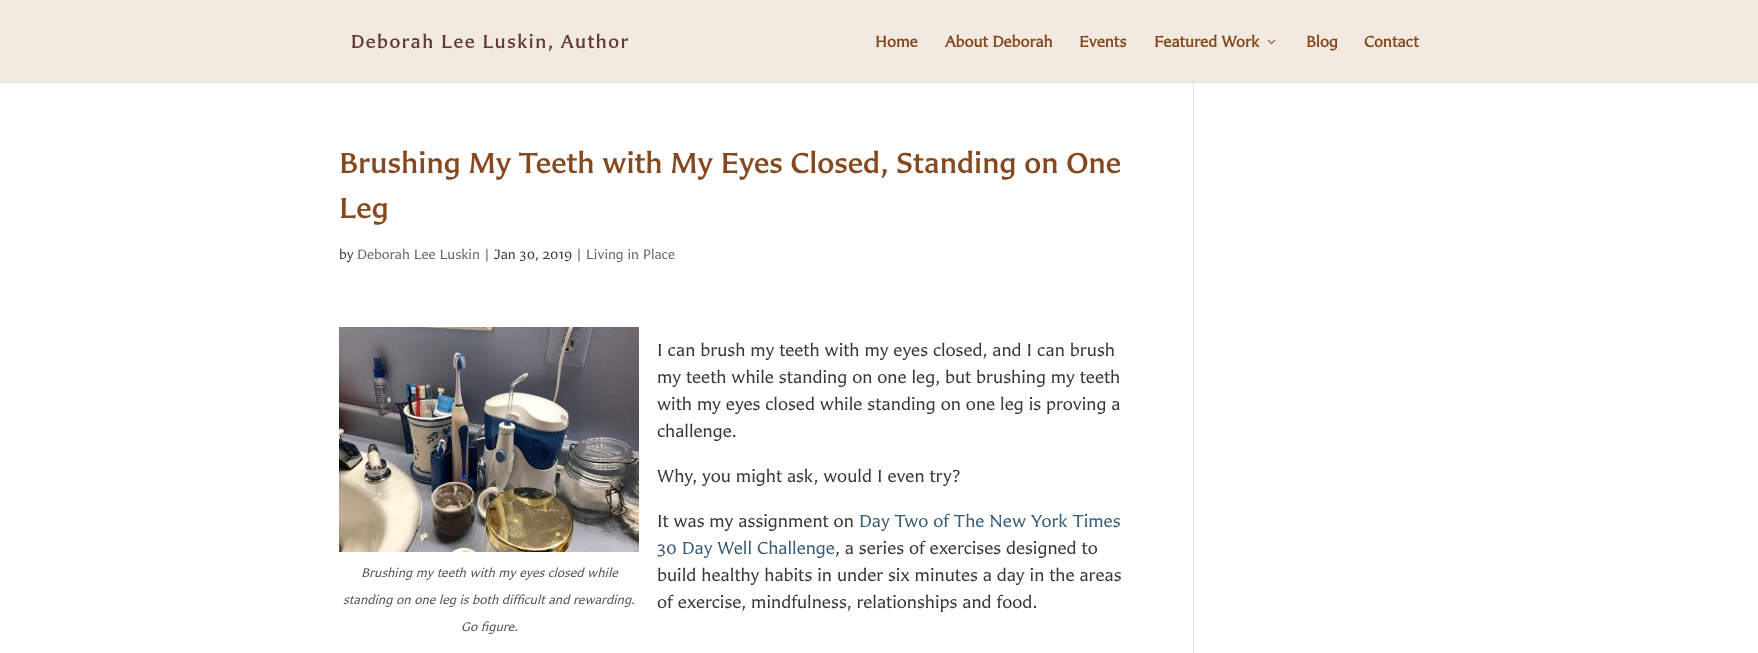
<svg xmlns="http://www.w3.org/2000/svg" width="1758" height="653">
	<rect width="100%" height="100%" fill="#F2EAE0" />
	<image x="351" y="33" width="277" height="18" href="assets/img1.png" />
	<g font-family="'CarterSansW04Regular'" font-size="16" font-weight="700" fill="#86481E">
		<text x="875" y="47">Home</text>
		<text x="945" y="47">About Deborah</text>
		<text x="1079" y="47">Events</text>
		<text x="1154" y="47">Featured Work</text>
	</g>
	<image x="1267" y="39" width="9" height="5" href="assets/img2.png" />
	<g font-family="'CarterSansW04Regular'" font-size="16" font-weight="700" fill="#86481E">
		<text x="1306" y="47">Blog</text>
		<text x="1364" y="47">Contact</text>
	</g>
	<rect x="0" y="83" width="1758" height="570" fill="#FFFFFF" />
	<rect x="0" y="82" width="1758" height="1" fill="#E6E6E6" />
	<g font-family="'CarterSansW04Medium'" font-size="30" font-weight="500" fill="#86481E">
		<text x="339" y="173">Brushing My Teeth with My Eyes Closed, Standing on One</text>
		<text x="339" y="218">Leg</text>
	</g>
	<text x="339" y="259" font-family="'CarterSansW04Regular'" font-size="14" fill="#383838">by</text>
	<text x="357" y="259" font-family="'CarterSansW04Regular'" font-size="14" fill="#666666">Deborah Lee Luskin</text>
	<text x="484" y="259" font-family="'CarterSansW04Regular'" font-size="14" fill="#383838">| Jan 30, 2019 |</text>
	<text x="586" y="259" font-family="'CarterSansW04Regular'" font-size="14" fill="#666666">Living in Place</text>
	<g font-family="'CarterSansW04Regular'" font-size="18" fill="#383838">
		<text x="657" y="356">I can brush my teeth with my eyes closed, and I can brush</text>
		<text x="657" y="383">my teeth while standing on one leg, but brushing my teeth</text>
		<text x="657" y="410">with my eyes closed while standing on one leg is proving a</text>
		<text x="657" y="437">challenge.</text>
		<text x="657" y="482">Why, you might ask, would I even try?</text>
	</g>
	<image x="339" y="327" width="300" height="225" href="assets/img3.png" />
	<g font-family="'CarterSansW04Regular'" font-size="13" font-style="italic" fill="#555555">
		<text x="361" y="577">Brushing my teeth with my eyes closed while</text>
		<text x="343" y="604">standing on one leg is both difficult and rewarding.</text>
		<text x="461" y="631">Go figure.</text>
	</g>
	<text x="657" y="527" font-family="'CarterSansW04Regular'" font-size="18" fill="#383838">It was my assignment on</text>
	<g font-family="'CarterSansW04Regular'" font-size="18" fill="#375C77">
		<text x="859" y="527">Day Two of The New York Times</text>
		<text x="657" y="554">30 Day Well Challenge</text>
	</g>
	<g font-family="'CarterSansW04Regular'" font-size="18" fill="#383838">
		<text x="835" y="554">, a series of exercises designed to</text>
		<text x="657" y="581">build healthy habits in under six minutes a day in the areas</text>
		<text x="657" y="608">of exercise, mindfulness, relationships and food.</text>
	</g>
	<rect x="1193" y="82" width="1" height="571" fill="#E2E2E2" />
	<rect x="1193" y="82" width="1" height="1" fill="#CBCBCB" />
</svg>
